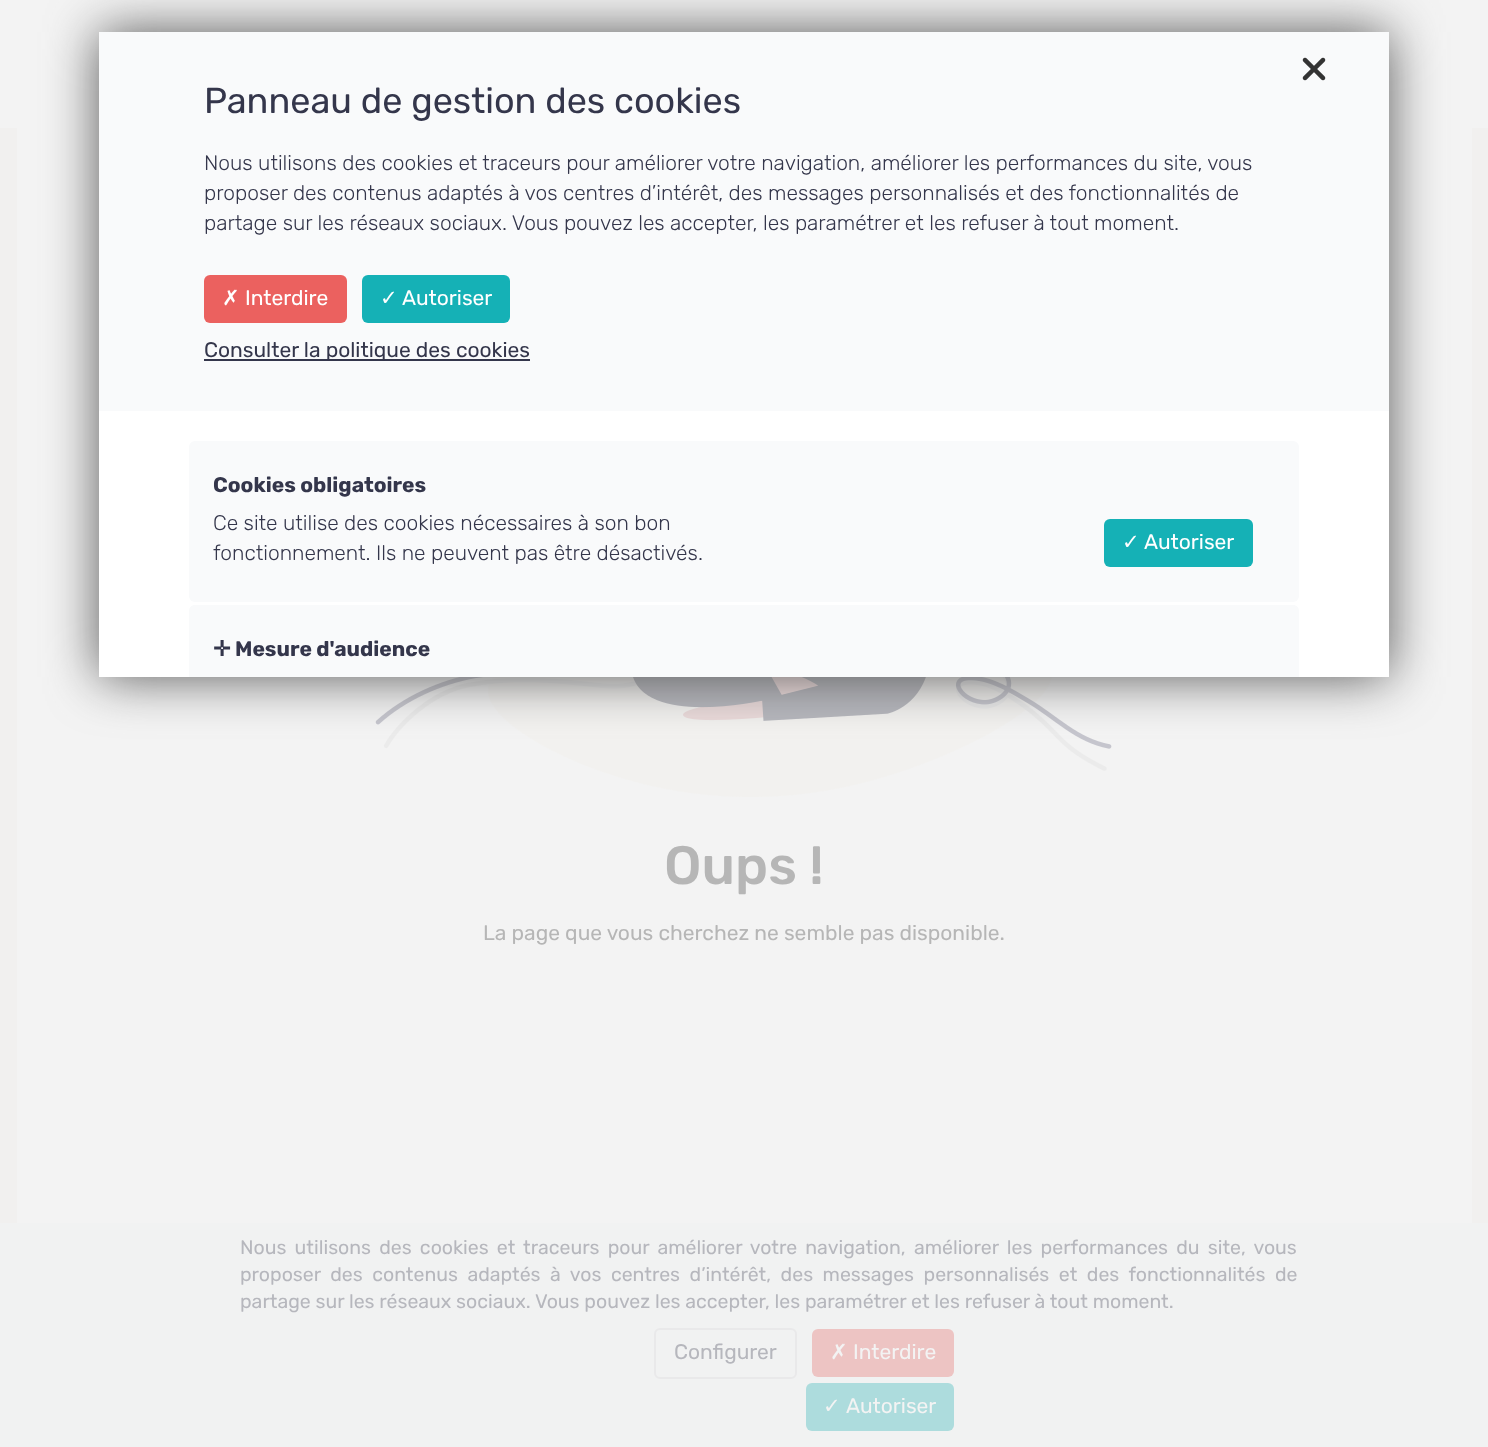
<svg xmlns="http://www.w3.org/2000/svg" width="1488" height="1447">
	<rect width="100%" height="100%" fill="#F1F0EF" />
	<rect x="0" y="0" width="1488" height="128" fill="#F3F3F3" />
	<rect x="17" y="128" width="1455" height="1095" fill="#F3F3F3" />
	<image x="375" y="677" width="737" height="120" href="assets/img2.png" />
	<rect x="99" y="32" width="1290" height="645" fill="#575757" filter="blur(26px)" />
	<rect x="99" y="32" width="1290" height="379" fill="#F9FAFB" />
	<image x="1302" y="57" width="24" height="24" href="assets/img1.png" />
	<text x="204" y="113" font-family="Rubik" font-size="36" fill="#34364B">Panneau de gestion des cookies</text>
	<g font-family="Rubik" font-size="21" font-weight="300" fill="#34364B">
		<text x="204" y="170">Nous utilisons des cookies et traceurs pour améliorer votre navigation, améliorer les performances du site, vous</text>
		<text x="204" y="200">proposer des contenus adaptés à vos centres d’intérêt, des messages personnalisés et des fonctionnalités de</text>
		<text x="204" y="230">partage sur les réseaux sociaux. Vous pouvez les accepter, les paramétrer et les refuser à tout moment.</text>
	</g>
	<rect x="204" y="275" width="143" height="48" rx="6" fill="#EB615F" />
	<text x="222" y="305" font-family="DejaVu Sans" font-size="21" fill="#FFFFFF">✗</text>
	<text x="245" y="305" font-family="Rubik" font-size="21" fill="#FFFFFF">Interdire</text>
	<rect x="362" y="275" width="148" height="48" rx="6" fill="#15B1B6" />
	<text x="380" y="305" font-family="DejaVu Sans" font-size="21" fill="#FFFFFF">✓</text>
	<text x="402" y="305" font-family="Rubik" font-size="21" fill="#FFFFFF">Autoriser</text>
	<rect x="204" y="359" width="326" height="2" fill="#34364B" />
	<text x="204" y="357" font-family="Rubik" font-size="21" fill="#34364B">Consulter la politique des cookies</text>
	<rect x="99" y="411" width="1290" height="266" fill="#FFFFFF" />
	<rect x="189" y="441" width="1110" height="161" rx="6" fill="#F9FAFB" />
	<text x="213" y="492" font-family="Rubik" font-size="21" font-weight="700" fill="#34364B">Cookies obligatoires</text>
	<g font-family="Rubik" font-size="21" font-weight="300" fill="#34364B">
		<text x="213" y="530">Ce site utilise des cookies nécessaires à son bon</text>
		<text x="213" y="560">fonctionnement. Ils ne peuvent pas être désactivés.</text>
	</g>
	<rect x="1104" y="519" width="149" height="48" rx="6" fill="#15B1B6" />
	<text x="1122" y="549" font-family="DejaVu Sans" font-size="21" fill="#FFFFFF">✓</text>
	<text x="1144" y="549" font-family="Rubik" font-size="21" fill="#FFFFFF">Autoriser</text>
	<path d="M195 605H1293C1296.5 605 1299 607.5 1299 611V677H189V611C189 607.5 191.5 605 195 605Z" fill="#F9FAFB" />
	<text x="213" y="656" font-family="DejaVu Sans" font-size="21" font-weight="700" fill="#34364B">✛</text>
	<text x="235" y="656" font-family="Rubik" font-size="21" font-weight="700" fill="#34364B">Mesure d'audience</text>
	<rect x="0" y="1223" width="1488" height="224" fill="#F1F2F2" />
	<g font-family="Rubik" font-size="19.5" fill="#B6B7BD">
		<text x="240" y="1254" word-spacing="3.4">Nous utilisons des cookies et traceurs pour améliorer votre navigation, améliorer les performances du site, vous</text>
		<text x="240" y="1281" word-spacing="4.75">proposer des contenus adaptés à vos centres d’intérêt, des messages personnalisés et des fonctionnalités de</text>
		<text x="240" y="1308">partage sur les réseaux sociaux. Vous pouvez les accepter, les paramétrer et les refuser à tout moment.</text>
	</g>
	<rect x="655" y="1329" width="141" height="49" rx="5" fill="none" stroke="#E9E9EA" stroke-width="2" />
	<text x="674" y="1359" font-family="Rubik" font-size="21" fill="#B6B7BD">Configurer</text>
	<rect x="812" y="1329" width="142" height="48" rx="6" fill="#EDC4C3" />
	<text x="830" y="1359" font-family="DejaVu Sans" font-size="21" fill="#F3F3F3">✗</text>
	<text x="853" y="1359" font-family="Rubik" font-size="21" fill="#F3F3F3">Interdire</text>
	<rect x="806" y="1383" width="148" height="48" rx="6" fill="#ADDCDD" />
	<text x="823" y="1413" font-family="DejaVu Sans" font-size="21" fill="#F3F3F3">✓</text>
	<text x="846" y="1413" font-family="Rubik" font-size="21" fill="#F3F3F3">Autoriser</text>
	<text x="664" y="884" font-family="Rubik" font-size="54" font-weight="500" fill="#B6B6B6">Oups !</text>
	<text x="483" y="940" font-family="Rubik" font-size="21" fill="#B6B6B6">La page que vous cherchez ne semble pas disponible.</text>
</svg>
